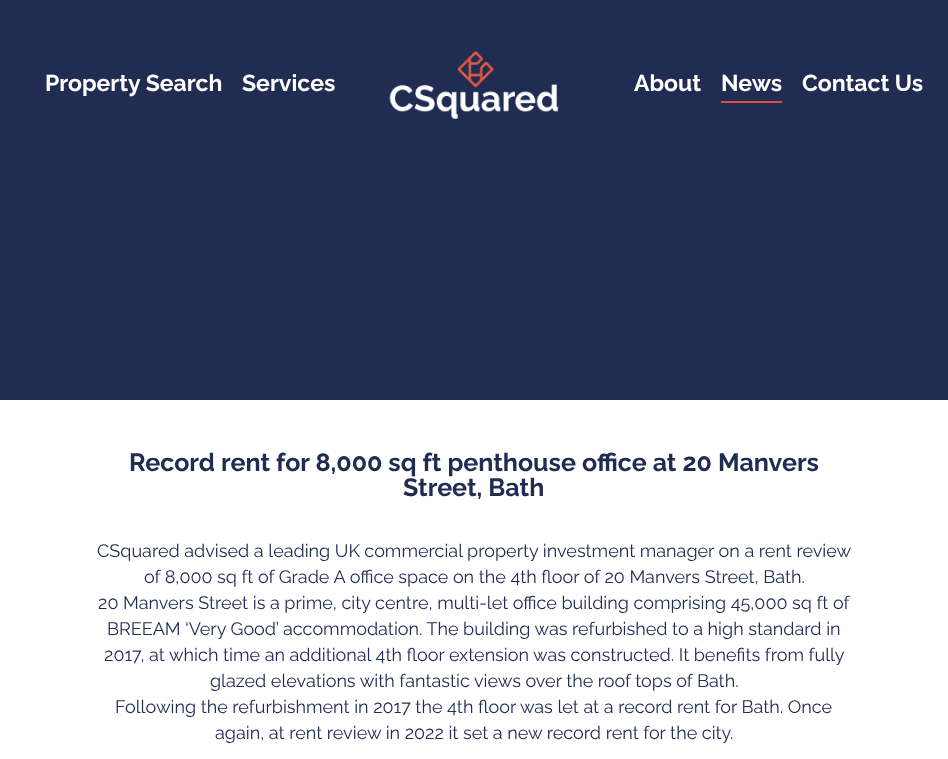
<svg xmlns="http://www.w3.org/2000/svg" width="948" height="759">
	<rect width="100%" height="100%" fill="#212C52" />
	<image x="389" y="50" width="170" height="69" href="assets/img1.png" />
	<g font-family="Raleway" font-size="23" font-weight="100" fill="#FFFFFF">
		<text x="45" y="91">Property Search</text>
		<text x="242" y="91">Services</text>
		<text x="634" y="91">About</text>
		<text x="721" y="91">News</text>
	</g>
	<rect x="721" y="101" width="61" height="2" fill="#DE5035" />
	<text x="802" y="91" font-family="Raleway" font-size="23" font-weight="100" fill="#FFFFFF">Contact Us</text>
	<rect x="0" y="400" width="948" height="359" fill="#FFFFFF" />
	<g font-family="Raleway" font-size="25" font-weight="100" fill="#212C52">
		<text x="129" y="471">Record rent for 8,000 sq ft penthouse office at 20 Manvers</text>
		<text x="403" y="496">Street, Bath</text>
	</g>
	<g font-family="'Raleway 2'" font-size="18" font-weight="100" fill="#212C52">
		<text x="97" y="557">CSquared advised a leading UK commercial property investment manager on a rent review</text>
		<text x="144" y="583">of 8,000 sq ft of Grade A office space on the 4th floor of 20 Manvers Street, Bath.</text>
		<text x="98" y="609">20 Manvers Street is a prime, city centre, multi-let office building comprising 45,000 sq ft of</text>
		<text x="107" y="635">BREEAM ‘Very Good’ accommodation. The building was refurbished to a high standard in</text>
		<text x="104" y="661">2017, at which time an additional 4th floor extension was constructed. It benefits from fully</text>
		<text x="210" y="687">glazed elevations with fantastic views over the roof tops of Bath.</text>
		<text x="115" y="713">Following the refurbishment in 2017 the 4th floor was let at a record rent for Bath. Once</text>
		<text x="215" y="739">again, at rent review in 2022 it set a new record rent for the city.</text>
	</g>
</svg>
